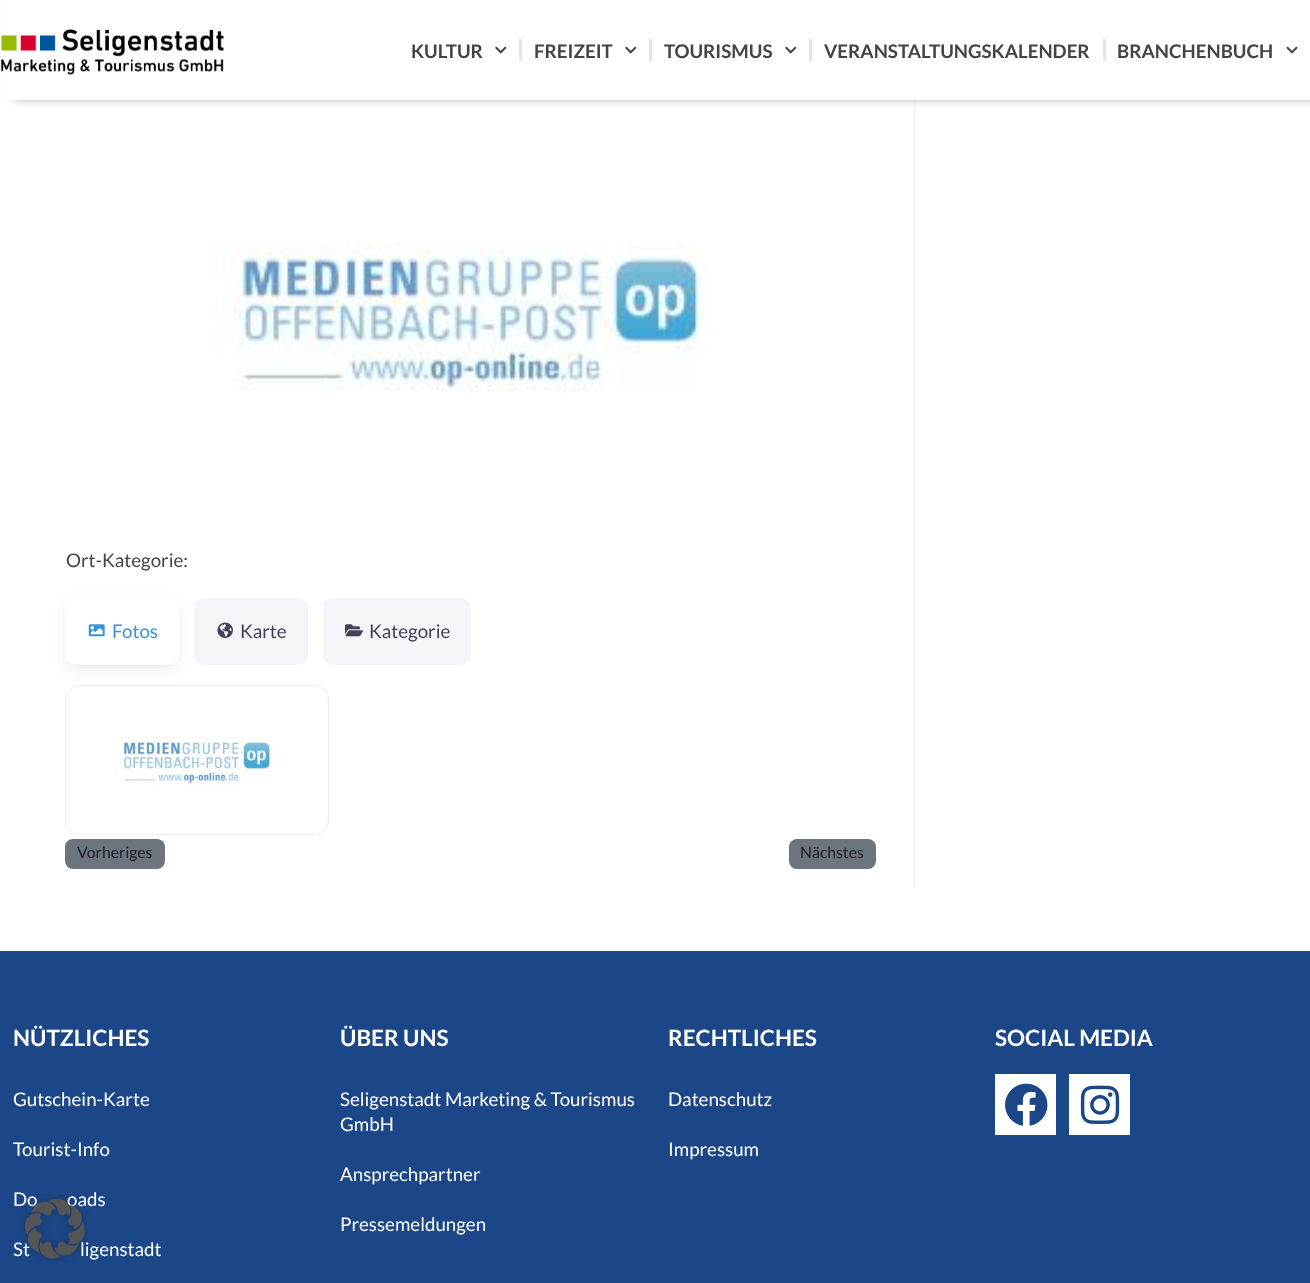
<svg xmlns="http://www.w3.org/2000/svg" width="1310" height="1283">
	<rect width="100%" height="100%" fill="#FFFFFF" />
	<rect x="914" y="100" width="1" height="789" fill="#F1F1F1" />
	<rect x="13" y="0" width="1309" height="100" fill="#000000" fill-opacity="0.28" filter="blur(4px)" />
	<rect x="6" y="0" width="1304" height="100" fill="#FFFFFF" />
	<image x="0" y="29" width="224" height="46" href="assets/img1.png" />
	<text x="411" y="58" font-family="Lato" font-size="18.75" font-weight="700" fill="#444444">KULTUR</text>
	<image x="495" y="46" width="12" height="8" href="assets/img2.png" />
	<rect x="519" y="39" width="3" height="22" fill="#E5E5E5" />
	<text x="534" y="58" font-family="Lato" font-size="18.75" font-weight="700" fill="#444444">FREIZEIT</text>
	<image x="625" y="46" width="12" height="8" href="assets/img2.png" />
	<rect x="649" y="39" width="3" height="22" fill="#E5E5E5" />
	<text x="664" y="58" font-family="Lato" font-size="18.75" font-weight="700" fill="#444444">TOURISMUS</text>
	<image x="785" y="46" width="12" height="8" href="assets/img2.png" />
	<rect x="809" y="39" width="3" height="22" fill="#E5E5E5" />
	<text x="824" y="58" font-family="Lato" font-size="18.75" font-weight="700" fill="#444444">VERANSTALTUNGSKALENDER</text>
	<rect x="1103" y="39" width="3" height="22" fill="#E5E5E5" />
	<text x="1117" y="58" font-family="Lato" font-size="18.75" font-weight="700" fill="#444444">BRANCHENBUCH</text>
	<image x="1286" y="46" width="12" height="8" href="assets/img3.png" />
	<image x="213" y="242" width="494" height="151" href="assets/img4.png" />
	<text x="66" y="567" font-family="Lato" font-size="18.75" fill="#444444">Ort-Kategorie:</text>
	<rect x="65" y="603" width="114" height="67" rx="10" fill="#1F1B2D" fill-opacity="0.08" filter="blur(7.5px)" />
	<rect x="68" y="603" width="108" height="62" rx="8" fill="#1F1B2D" fill-opacity="0.08" filter="blur(1px)" />
	<rect x="65" y="598" width="114" height="67" rx="10" fill="#FFFFFF" />
	<image x="88" y="624" width="17" height="13" href="assets/img5.png" />
	<text x="112" y="638" font-family="Lato" font-size="18.75" fill="#3993D5">Fotos</text>
	<rect x="194" y="598" width="114" height="67" rx="10" fill="#F5F4F8" />
	<image x="217" y="622" width="16" height="16" href="assets/img6.png" />
	<text x="240" y="638" font-family="Lato" font-size="18.75" fill="#454056">Karte</text>
	<rect x="323" y="598" width="148" height="67" rx="10" fill="#F5F4F8" />
	<image x="345" y="624" width="18" height="13" href="assets/img7.png" />
	<text x="369" y="638" font-family="Lato" font-size="18.75" fill="#454056">Kategorie</text>
	<rect x="65.5" y="685.5" width="263" height="149" rx="14.5" fill="none" stroke="#EFECF3" />
	<image x="73" y="737" width="245" height="97" href="assets/img8.png" />
	<rect x="65" y="839" width="100" height="30" rx="8" fill="#6C757D" />
	<text x="77" y="858" font-family="Lato" font-size="15.75" fill="#1F1B2D">Vorheriges</text>
	<rect x="789" y="839" width="87" height="30" rx="8" fill="#6C757D" />
	<text x="800" y="858" font-family="Lato" font-size="15.75" fill="#1F1B2D">Nächstes</text>
	<rect x="0" y="951" width="1310" height="332" fill="#1B4687" />
	<text x="13" y="1046" font-family="Lato" font-size="22.5" font-weight="700" fill="#FFFFFF">NÜTZLICHES</text>
	<g font-family="Lato" font-size="18.75" fill="#FFFFFF">
		<text x="13" y="1106">Gutschein-Karte</text>
		<text x="13" y="1156">Tourist-Info</text>
		<text x="13" y="1206">Do</text>
		<text x="67" y="1206">oads</text>
		<text x="13" y="1256">St</text>
		<text x="80" y="1256">ligenstadt</text>
	</g>
	<text x="340" y="1046" font-family="Lato" font-size="22.5" font-weight="700" fill="#FFFFFF">ÜBER UNS</text>
	<g font-family="Lato" font-size="18.75" fill="#FFFFFF">
		<text x="340" y="1106">Seligenstadt Marketing &amp; Tourismus</text>
		<text x="340" y="1131">GmbH</text>
		<text x="340" y="1181">Ansprechpartner</text>
		<text x="340" y="1231">Pressemeldungen</text>
	</g>
	<text x="668" y="1046" font-family="Lato" font-size="22.5" font-weight="700" fill="#FFFFFF">RECHTLICHES</text>
	<g font-family="Lato" font-size="18.75" fill="#FFFFFF">
		<text x="668" y="1106">Datenschutz</text>
		<text x="668" y="1156">Impressum</text>
	</g>
	<text x="995" y="1046" font-family="Lato" font-size="22.5" font-weight="700" fill="#FFFFFF">SOCIAL MEDIA</text>
	<rect x="995" y="1074" width="61" height="61" fill="#FFFFFF" />
	<image x="1005" y="1083" width="43" height="43" href="assets/img9.png" />
	<rect x="1069" y="1074" width="61" height="61" fill="#FFFFFF" />
	<image x="1080" y="1085" width="40" height="39" href="assets/img10.png" />
	<image x="21" y="1194" width="68" height="69" href="assets/img11.png" />
</svg>
